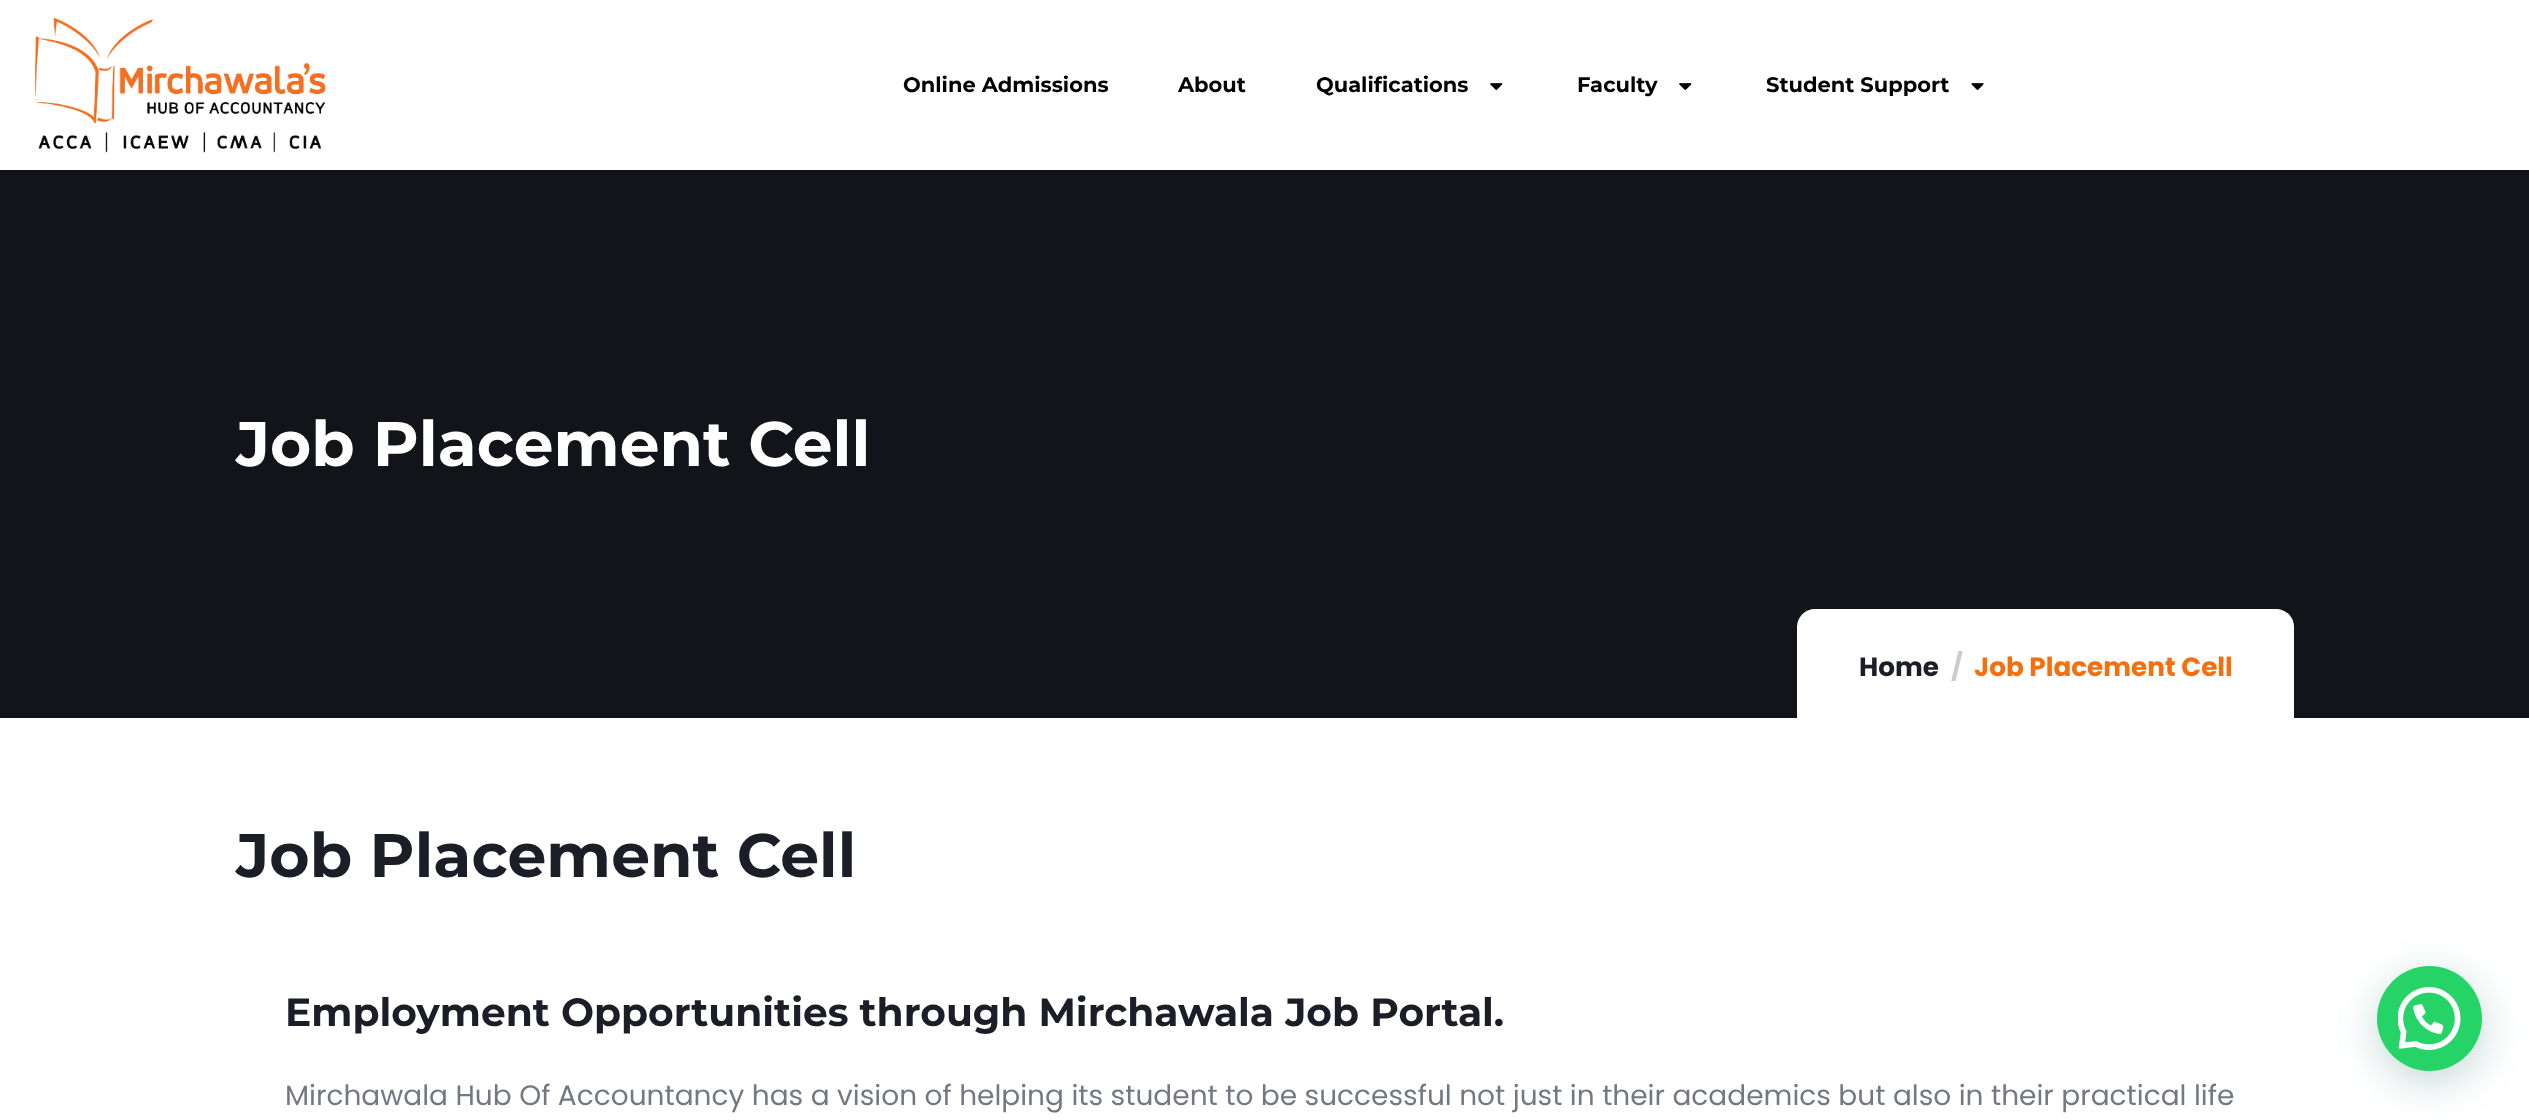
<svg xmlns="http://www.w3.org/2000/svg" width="2529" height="1120">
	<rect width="100%" height="100%" fill="#FFFFFF" />
	<image x="35" y="17" width="291" height="136" href="assets/img1.png" />
	<g font-family="Montserrat" font-size="21" font-weight="700" fill="#000000">
		<text x="903" y="92">Online Admissions</text>
		<text x="1178" y="92">About</text>
		<text x="1316" y="92">Qualifications</text>
	</g>
	<image x="1490" y="83" width="13" height="7" href="assets/img2.png" />
	<text x="1577" y="92" font-family="Montserrat" font-size="21" font-weight="700" fill="#000000">Faculty</text>
	<image x="1679" y="83" width="13" height="7" href="assets/img2.png" />
	<text x="1766" y="92" font-family="Montserrat" font-size="21" font-weight="700" fill="#000000">Student Support</text>
	<image x="1971" y="83" width="13" height="7" href="assets/img3.png" />
	<rect x="0" y="170" width="2529" height="548" fill="#131419" />
	<text x="236" y="466" font-family="Montserrat" font-size="63" font-weight="700" fill="#FFFFFF">Job Placement Cell</text>
	<path d="M1815 609H2276C2286 609 2294 617 2294 627V718H1797V627C1797 617 1805 609 1815 609Z" fill="#FFFFFF" />
	<text x="1859" y="676" font-family="Poppins" font-size="26.25" font-weight="700" fill="#1C1E27">Home</text>
	<text x="1951" y="676" font-family="Poppins" font-size="26.25" font-weight="700" fill="#CCCCCC">/</text>
	<text x="1974" y="676" font-family="Poppins" font-size="26.25" font-weight="700" fill="#F66F0E">Job Placement Cell</text>
	<text x="236" y="877" font-family="Montserrat" font-size="61.6" font-weight="700" fill="#1C1E27">Job Placement Cell</text>
	<text x="285" y="1026" font-family="Montserrat" font-size="39.2" font-weight="700" fill="#1C1E27">Employment Opportunities through Mirchawala Job Portal.</text>
	<text x="285" y="1105" font-family="Poppins" font-size="28" fill="#757783">Mirchawala Hub Of Accountancy has a vision of helping its student to be successful not just in their academics but also in their practical life</text>
	<rect x="2378" y="977" width="105" height="105" rx="52.5" fill="#075E54" fill-opacity="0.24" filter="blur(21px)" />
	<circle cx="2429.5" cy="1018.5" r="52.5" fill="#25D366" />
	<image x="2398" y="987" width="63" height="63" href="assets/img4.png" />
</svg>
